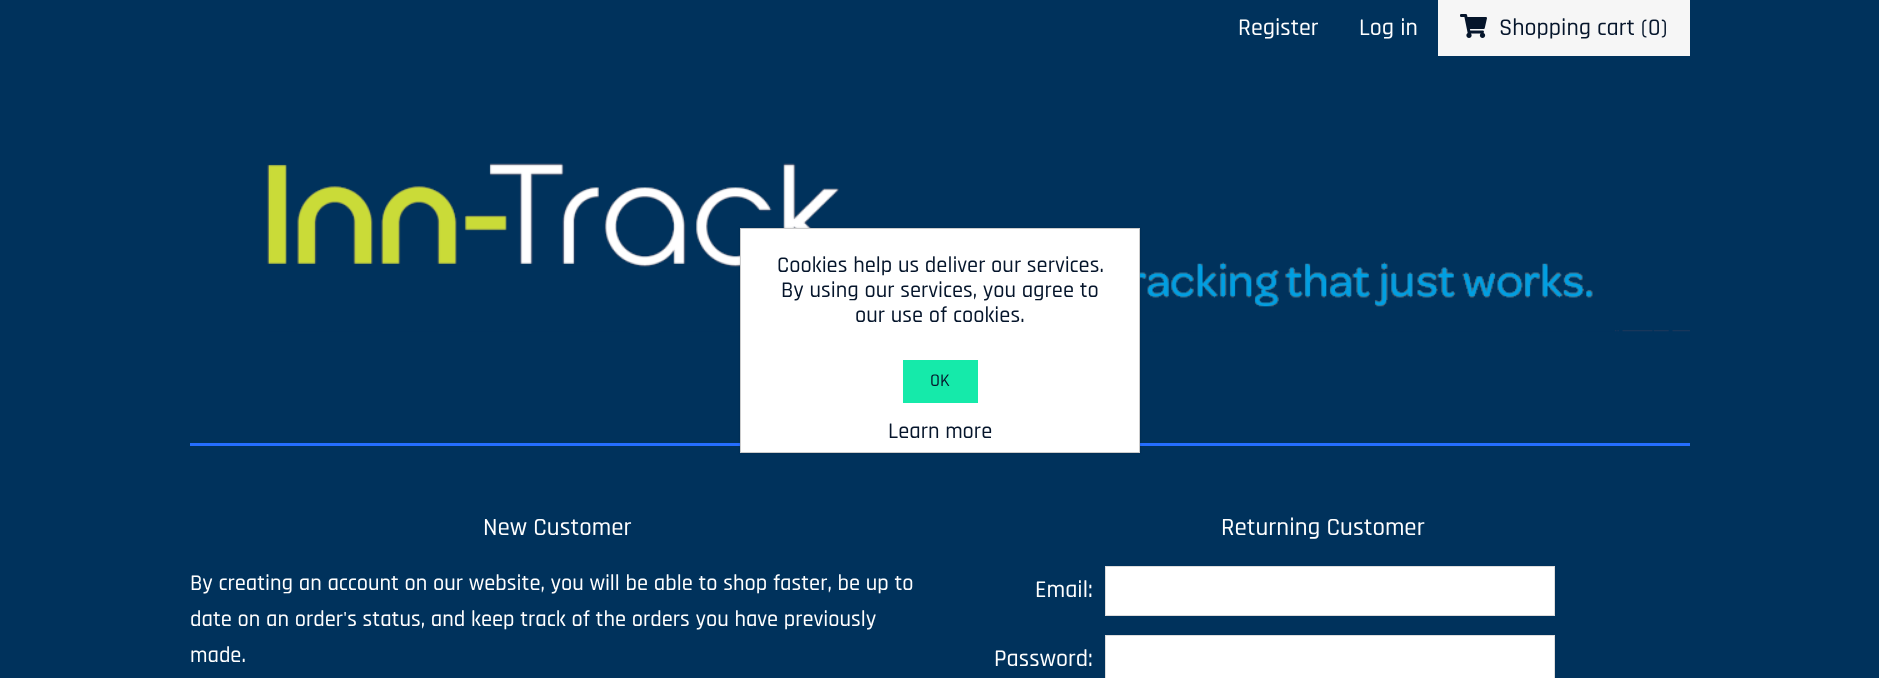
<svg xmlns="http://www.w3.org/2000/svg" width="1879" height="678">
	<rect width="100%" height="100%" fill="#00325C" />
	<g font-family="Rajdhani" font-size="24" font-weight="500" fill="#FFFFFF">
		<text x="1238" y="35">Register</text>
		<text x="1359" y="35">Log in</text>
	</g>
	<rect x="1438" y="0" width="252" height="56" fill="#F6F6F6" />
	<image x="1460" y="14" width="27" height="24" href="assets/img1.png" />
	<text x="1499" y="35" font-family="Rajdhani" font-size="24" font-weight="500" fill="#05152B">Shopping cart (0)</text>
	<image x="267" y="163" width="1423" height="169" href="assets/img2.png" />
	<rect x="190" y="443" width="1500" height="3" fill="#256EFF" />
	<text x="483" y="535" font-family="Rajdhani" font-size="25" font-weight="500" fill="#FFFFFF">New Customer</text>
	<g font-family="Rajdhani" font-size="22.5" font-weight="500" fill="#FFFFFF">
		<text x="190" y="590">By creating an account on our website, you will be able to shop faster, be up to</text>
		<text x="190" y="626">date on an order's status, and keep track of the orders you have previously</text>
		<text x="190" y="662">made.</text>
	</g>
	<text x="1221" y="535" font-family="Rajdhani" font-size="25" font-weight="500" fill="#FFFFFF">Returning Customer</text>
	<text x="1035" y="597" font-family="Rajdhani" font-size="24" font-weight="500" fill="#FFFFFF">Email:</text>
	<rect x="1105.5" y="566.5" width="449" height="49" fill="#FFFFFF" stroke="#DDDDDD" />
	<text x="994" y="666" font-family="Rajdhani" font-size="24" font-weight="500" fill="#FFFFFF">Password:</text>
	<rect x="1105.5" y="635.5" width="449" height="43" fill="#FFFFFF" stroke="#DDDDDD" />
	<rect x="740" y="228" width="400" height="225" fill="#000000" fill-opacity="0.15" filter="blur(1px)" />
	<rect x="740.5" y="228.5" width="399" height="224" fill="#FFFFFF" stroke="#CCCCCC" />
	<g font-family="Rajdhani" font-size="22.5" font-weight="500" fill="#05152B">
		<text x="777" y="272">Cookies help us deliver our services.</text>
		<text x="781" y="297">By using our services, you agree to</text>
		<text x="855" y="322">our use of cookies.</text>
	</g>
	<rect x="903" y="360" width="75" height="43" fill="#15EAAA" />
	<text x="930" y="386" font-family="Rajdhani" font-size="18" font-weight="500" fill="#05152B">OK</text>
	<text x="888" y="438" font-family="Rajdhani" font-size="22.5" font-weight="500" fill="#05152B">Learn more</text>
</svg>
